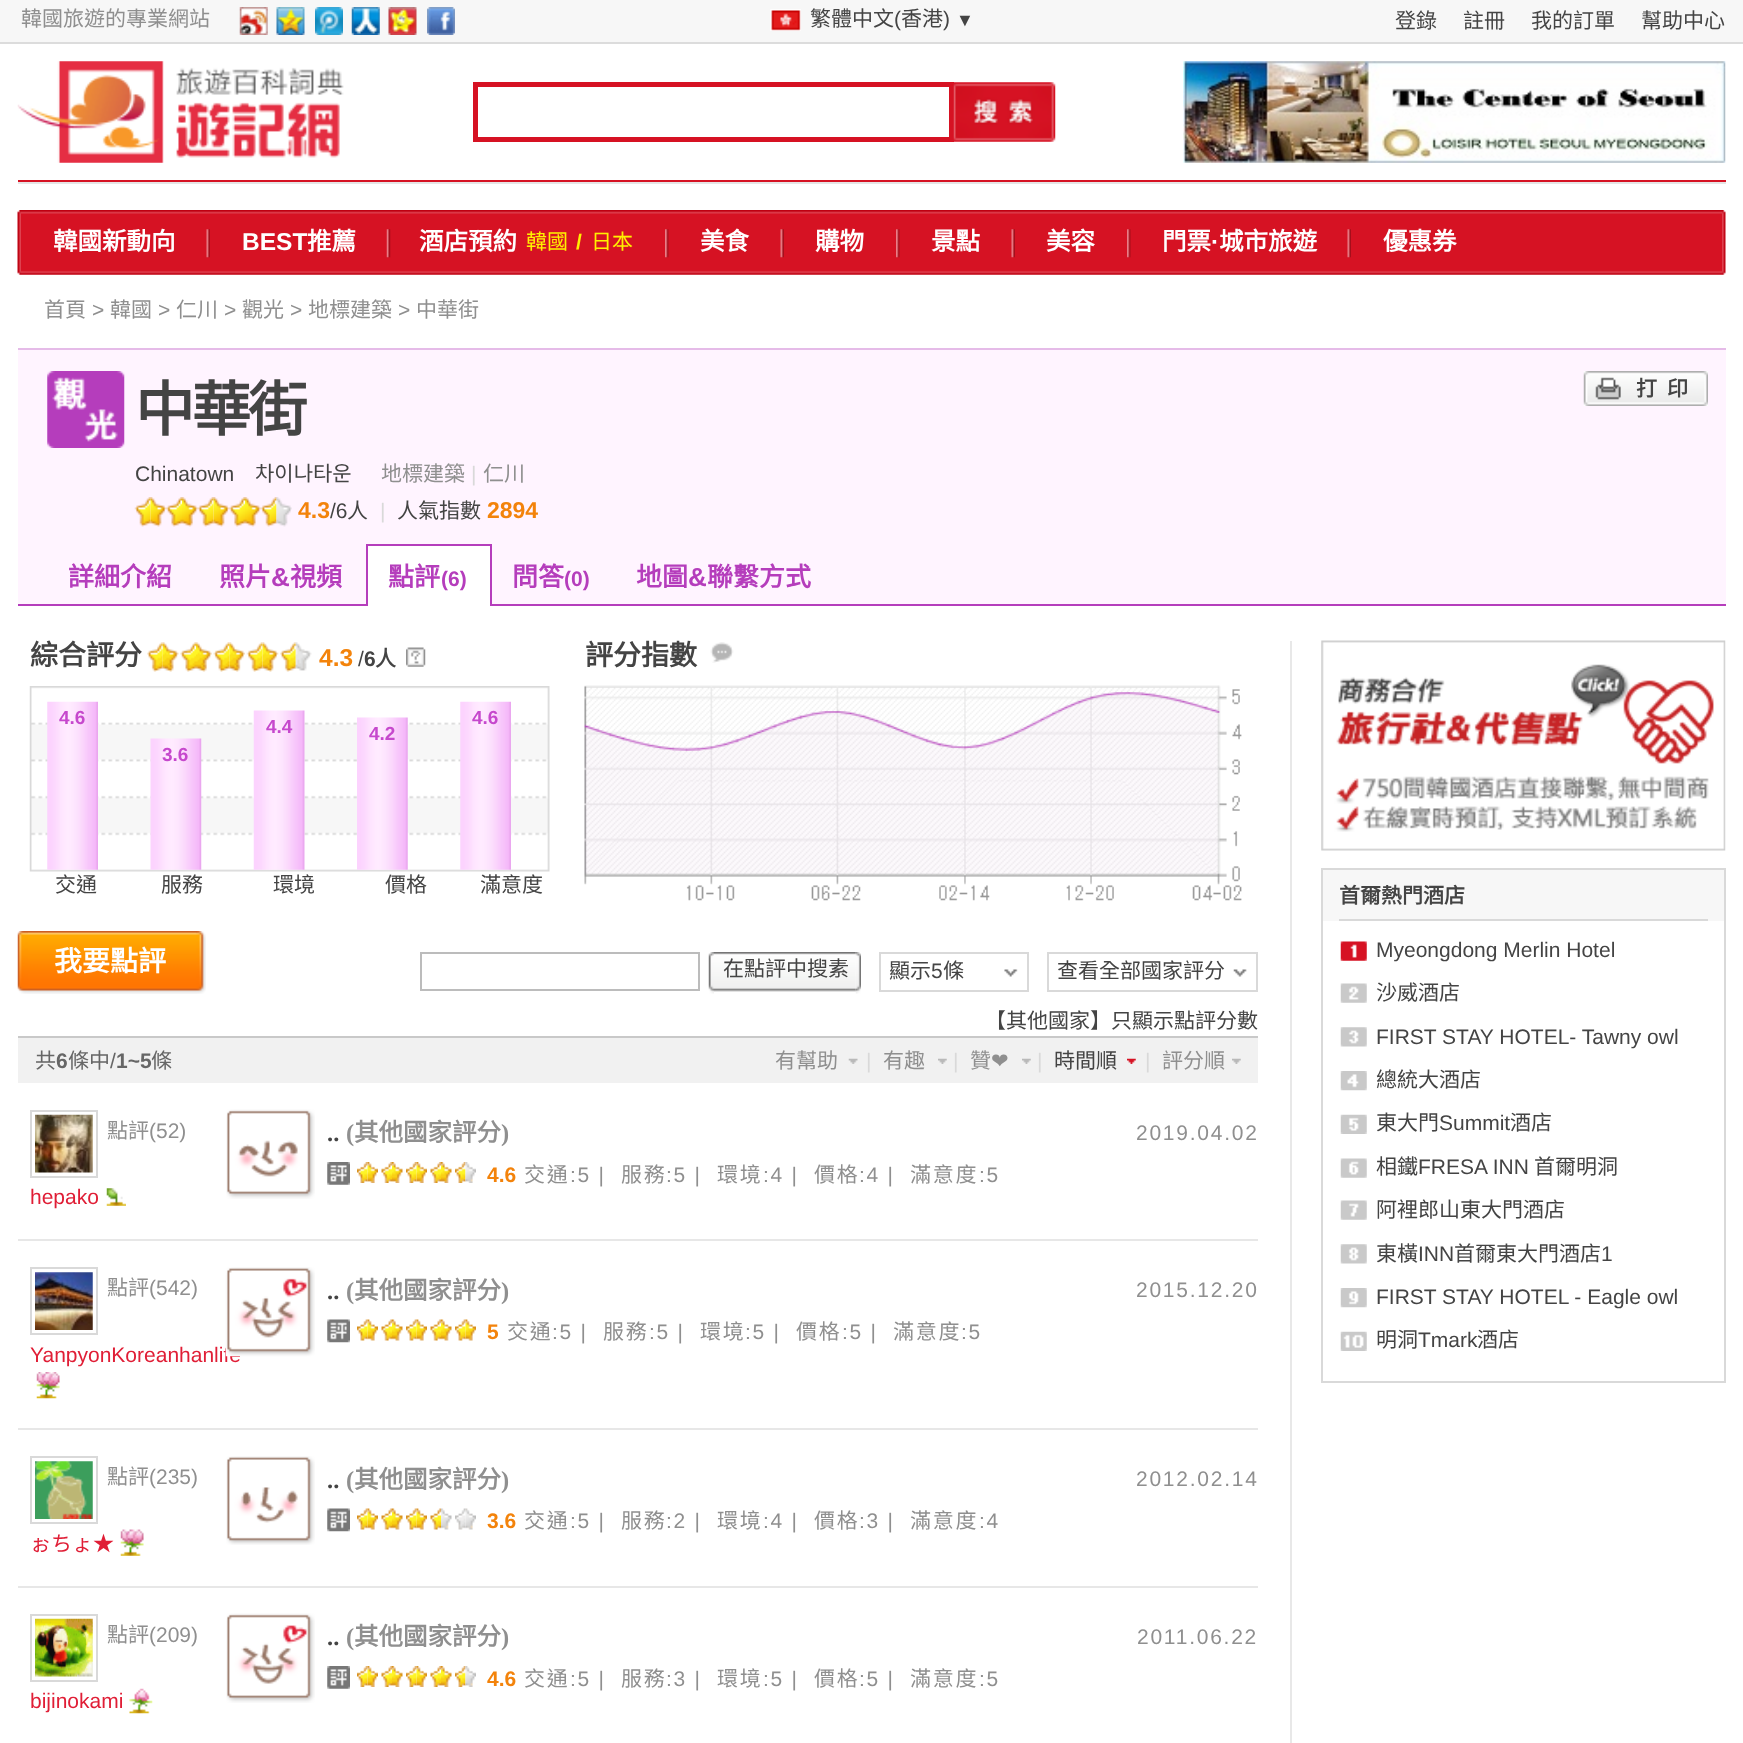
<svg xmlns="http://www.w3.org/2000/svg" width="1743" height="1743">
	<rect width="100%" height="100%" fill="#FFFFFF" />
	<rect x="0" y="0" width="1743" height="42" fill="#F7F7F7" />
	<rect x="0" y="42" width="1743" height="2" fill="#DCDCDC" />
	<text x="21" y="26" font-family="Noto Sans CJK HK" font-size="21" fill="#8F8F8F">韓國旅遊的專業網站</text>
	<image x="239" y="7" width="29" height="28" href="assets/img1.png" />
	<image x="276" y="7" width="29" height="28" href="assets/img2.png" />
	<image x="315" y="7" width="28" height="28" href="assets/img3.png" />
	<image x="351" y="7" width="29" height="28" href="assets/img4.png" />
	<image x="388" y="7" width="29" height="28" href="assets/img5.png" />
	<image x="427" y="7" width="28" height="28" href="assets/img6.png" />
	<image x="770" y="9" width="31" height="22" href="assets/img7.png" />
	<text x="810" y="26" font-family="Noto Sans CJK HK" font-size="21" fill="#444444">繁體中文</text>
	<text x="894" y="26" font-family="Liberation Sans" font-size="21" fill="#444444">(</text>
	<text x="901" y="26" font-family="Noto Sans CJK HK" font-size="21" fill="#444444">香港</text>
	<text x="943" y="26" font-family="Liberation Sans" font-size="21" fill="#444444">)</text>
	<text x="956" y="26" font-family="Liberation Sans" font-size="18" fill="#444444">▼</text>
	<g font-family="Noto Sans CJK HK" font-size="21" fill="#444444">
		<text x="1395" y="28">登錄</text>
		<text x="1463" y="28">註冊</text>
		<text x="1531" y="28">我的訂單</text>
		<text x="1641" y="28">幫助中心</text>
	</g>
	<rect x="18" y="180" width="1708" height="2" fill="#D61223" />
	<image x="17" y="61" width="327" height="102" href="assets/img8.png" />
	<rect x="475.5" y="84.5" width="476" height="55" fill="none" stroke="#D61223" stroke-width="5" />
	<image x="953" y="82" width="103" height="60" href="assets/img9.png" />
	<image x="1183" y="61" width="543" height="102" href="assets/img10.png" />
	<rect x="18" y="182" width="1708" height="2" fill="#E5E5E5" />
	<image x="17" y="210" width="4" height="65" href="assets/img11.png" />
	<image x="21" y="210" width="1701" height="65" href="assets/img12.png" />
	<text x="53" y="250" font-family="Noto Sans CJK HK" font-size="24.5" font-weight="700" fill="#FFFFFF">韓國新動向</text>
	<image x="206" y="229" width="4" height="29" href="assets/img13.png" />
	<text x="242" y="250" font-family="Liberation Sans" font-size="24.5" font-weight="700" fill="#FFFFFF">BEST</text>
	<text x="307" y="250" font-family="Noto Sans CJK HK" font-size="24.5" font-weight="700" fill="#FFFFFF">推薦</text>
	<image x="386" y="229" width="5" height="29" href="assets/img14.png" />
	<text x="419" y="250" font-family="Noto Sans CJK HK" font-size="24.5" font-weight="700" fill="#FFFFFF">酒店預約</text>
	<text x="526" y="249" font-family="Noto Sans CJK HK" font-size="21" fill="#FFF000">韓國</text>
	<text x="576" y="249" font-family="Liberation Sans" font-size="21" font-weight="700" fill="#FFF000">/</text>
	<text x="591" y="249" font-family="Noto Sans CJK HK" font-size="21" fill="#FFF000">日本</text>
	<image x="665" y="229" width="4" height="29" href="assets/img15.png" />
	<text x="700" y="250" font-family="Noto Sans CJK HK" font-size="24.5" font-weight="700" fill="#FFFFFF">美食</text>
	<image x="780" y="229" width="4" height="29" href="assets/img13.png" />
	<text x="815" y="250" font-family="Noto Sans CJK HK" font-size="24.5" font-weight="700" fill="#FFFFFF">購物</text>
	<image x="896" y="229" width="4" height="29" href="assets/img15.png" />
	<text x="931" y="250" font-family="Noto Sans CJK HK" font-size="24.5" font-weight="700" fill="#FFFFFF">景點</text>
	<image x="1011" y="229" width="4" height="29" href="assets/img13.png" />
	<text x="1046" y="250" font-family="Noto Sans CJK HK" font-size="24.5" font-weight="700" fill="#FFFFFF">美容</text>
	<image x="1127" y="229" width="4" height="29" href="assets/img15.png" />
	<text x="1162" y="250" font-family="Noto Sans CJK HK" font-size="24.5" font-weight="700" fill="#FFFFFF">門票</text>
	<text x="1211" y="250" font-family="Liberation Sans" font-size="24.5" font-weight="700" fill="#FFFFFF">·</text>
	<text x="1219" y="250" font-family="Noto Sans CJK HK" font-size="24.5" font-weight="700" fill="#FFFFFF">城市旅遊</text>
	<image x="1347" y="229" width="4" height="29" href="assets/img13.png" />
	<text x="1383" y="250" font-family="Noto Sans CJK HK" font-size="24.5" font-weight="700" fill="#FFFFFF">優惠券</text>
	<image x="1722" y="210" width="4" height="65" href="assets/img16.png" />
	<text x="44" y="317" font-family="Noto Sans CJK HK" font-size="21" fill="#8F8F8F">首頁</text>
	<text x="92" y="317" font-family="Liberation Sans" font-size="21" fill="#8F8F8F">&gt;</text>
	<text x="110" y="317" font-family="Noto Sans CJK HK" font-size="21" fill="#8F8F8F">韓國</text>
	<text x="158" y="317" font-family="Liberation Sans" font-size="21" fill="#8F8F8F">&gt;</text>
	<text x="176" y="317" font-family="Noto Sans CJK HK" font-size="21" fill="#8F8F8F">仁川</text>
	<text x="224" y="317" font-family="Liberation Sans" font-size="21" fill="#8F8F8F">&gt;</text>
	<text x="242" y="317" font-family="Noto Sans CJK HK" font-size="21" fill="#8F8F8F">觀光</text>
	<text x="290" y="317" font-family="Liberation Sans" font-size="21" fill="#8F8F8F">&gt;</text>
	<text x="308" y="317" font-family="Noto Sans CJK HK" font-size="21" fill="#8F8F8F">地標建築</text>
	<text x="398" y="317" font-family="Liberation Sans" font-size="21" fill="#8F8F8F">&gt;</text>
	<text x="416" y="317" font-family="Noto Sans CJK HK" font-size="21" fill="#8F8F8F">中華街</text>
	<rect x="18" y="350" width="1708" height="254" fill="#FFF4FF" />
	<rect x="18" y="348" width="1708" height="2" fill="#E5BBE8" />
	<rect x="18" y="604" width="1708" height="2" fill="#B53DBC" />
	<image x="47" y="371" width="78" height="77" href="assets/img17.png" />
	<text x="135" y="431" font-family="Noto Sans CJK HK" font-size="59.5" font-weight="700" letter-spacing="-3" fill="#444444">中華街</text>
	<text x="135" y="481" font-family="Liberation Sans" font-size="21" fill="#444444">Chinatown</text>
	<text x="255" y="481" font-family="Noto Sans CJK HK" font-size="21" fill="#444444">차이나타운</text>
	<text x="381" y="481" font-family="Noto Sans CJK HK" font-size="21" fill="#8F8F8F">地標建築</text>
	<text x="471" y="481" font-family="Liberation Sans" font-size="21" fill="#D9D9D9">|</text>
	<text x="483" y="481" font-family="Noto Sans CJK HK" font-size="21" fill="#8F8F8F">仁川</text>
	<image x="134" y="497" width="17" height="30" href="assets/img18.png" />
	<image x="150" y="497" width="17" height="30" href="assets/img19.png" />
	<image x="166" y="497" width="16" height="30" href="assets/img20.png" />
	<image x="182" y="497" width="16" height="30" href="assets/img21.png" />
	<image x="197" y="497" width="17" height="30" href="assets/img22.png" />
	<image x="213" y="497" width="17" height="30" href="assets/img19.png" />
	<image x="229" y="497" width="16" height="30" href="assets/img23.png" />
	<image x="245" y="497" width="16" height="30" href="assets/img24.png" />
	<image x="260" y="497" width="17" height="30" href="assets/img25.png" />
	<image x="276" y="497" width="16" height="30" href="assets/img26.png" />
	<text x="298" y="518" font-family="Liberation Sans" font-size="23" font-weight="700" fill="#F3830B">4.3</text>
	<text x="330" y="518" font-family="Liberation Sans" font-size="21" fill="#444444">/6</text>
	<text x="347" y="518" font-family="Noto Sans CJK HK" font-size="21" fill="#444444">人</text>
	<text x="380" y="518" font-family="Liberation Sans" font-size="21" fill="#D9D9D9">|</text>
	<text x="397" y="518" font-family="Noto Sans CJK HK" font-size="21" fill="#444444">人氣指數</text>
	<text x="487" y="518" font-family="Liberation Sans" font-size="23" font-weight="700" fill="#F3830B">2894</text>
	<image x="1583" y="371" width="125" height="35" href="assets/img27.png" />
	<text x="1636" y="396" font-family="Noto Sans CJK HK" font-size="21" font-weight="700" letter-spacing="10" fill="#444444">打印</text>
	<g font-family="Noto Sans CJK HK" font-size="26" font-weight="700" fill="#B53DBC">
		<text x="68" y="586">詳細介紹</text>
		<text x="219" y="586">照片</text>
	</g>
	<text x="271" y="586" font-family="Liberation Sans" font-size="26" font-weight="700" fill="#B53DBC">&amp;</text>
	<text x="290" y="586" font-family="Noto Sans CJK HK" font-size="26" font-weight="700" fill="#B53DBC">視頻</text>
	<rect x="368" y="546" width="122" height="60" fill="#FFFFFF" />
	<rect x="366" y="544" width="126" height="2" fill="#B53DBC" />
	<rect x="490" y="544" width="2" height="62" fill="#B53DBC" />
	<rect x="366" y="544" width="2" height="62" fill="#B53DBC" />
	<text x="388" y="586" font-family="Noto Sans CJK HK" font-size="26" font-weight="700" fill="#B53DBC">點評</text>
	<text x="441" y="586" font-family="Liberation Sans" font-size="21" font-weight="700" fill="#B53DBC">(6)</text>
	<text x="512" y="586" font-family="Noto Sans CJK HK" font-size="26" font-weight="700" fill="#B53DBC">問答</text>
	<text x="564" y="586" font-family="Liberation Sans" font-size="21" font-weight="700" fill="#B53DBC">(0)</text>
	<text x="636" y="586" font-family="Noto Sans CJK HK" font-size="26" font-weight="700" fill="#B53DBC">地圖</text>
	<text x="688" y="586" font-family="Liberation Sans" font-size="26" font-weight="700" fill="#B53DBC">&amp;</text>
	<text x="707" y="586" font-family="Noto Sans CJK HK" font-size="26" font-weight="700" fill="#B53DBC">聯繫方式</text>
	<rect x="1290" y="641" width="2" height="1102" fill="#E8E8E8" />
	<text x="30" y="665" font-family="Noto Sans CJK HK" font-size="28" font-weight="700" fill="#444444">綜合評分</text>
	<image x="147" y="642" width="16" height="30" href="assets/img28.png" />
	<image x="162" y="642" width="17" height="30" href="assets/img29.png" />
	<image x="180" y="642" width="16" height="30" href="assets/img30.png" />
	<image x="196" y="642" width="16" height="30" href="assets/img31.png" />
	<image x="213" y="642" width="17" height="30" href="assets/img32.png" />
	<image x="229" y="642" width="16" height="30" href="assets/img33.png" />
	<image x="246" y="642" width="17" height="30" href="assets/img34.png" />
	<image x="262" y="642" width="17" height="30" href="assets/img35.png" />
	<image x="280" y="642" width="16" height="30" href="assets/img36.png" />
	<image x="295" y="642" width="17" height="29" href="assets/img37.png" />
	<text x="319" y="666" font-family="Liberation Sans" font-size="24.5" font-weight="700" fill="#F3830B">4.3</text>
	<text x="358" y="666" font-family="Liberation Sans" font-size="21" fill="#444444">/</text>
	<text x="364" y="666" font-family="Liberation Sans" font-size="21" font-weight="700" fill="#444444">6</text>
	<text x="375" y="666" font-family="Noto Sans CJK HK" font-size="21" font-weight="700" fill="#444444">人</text>
	<image x="406" y="647" width="20" height="20" href="assets/img38.png" />
	<image x="29" y="686" width="521" height="186" href="assets/img39.png" />
	<image x="47" y="701" width="51" height="169" href="assets/img40.png" />
	<text x="59" y="724" font-family="Liberation Sans" font-size="19" font-weight="700" fill="#C648CD">4.6</text>
	<image x="253" y="710" width="52" height="160" href="assets/img41.png" />
	<text x="266" y="733" font-family="Liberation Sans" font-size="19" font-weight="700" fill="#C648CD">4.4</text>
	<image x="357" y="717" width="51" height="153" href="assets/img42.png" />
	<text x="369" y="740" font-family="Liberation Sans" font-size="19" font-weight="700" fill="#C648CD">4.2</text>
	<image x="460" y="701" width="51" height="169" href="assets/img43.png" />
	<text x="472" y="724" font-family="Liberation Sans" font-size="19" font-weight="700" fill="#C648CD">4.6</text>
	<image x="150" y="738" width="52" height="132" href="assets/img44.png" />
	<text x="162" y="761" font-family="Liberation Sans" font-size="19" font-weight="700" fill="#C648CD">3.6</text>
	<g font-family="Noto Sans CJK HK" font-size="21" fill="#444444">
		<text x="55" y="892">交通</text>
		<text x="161" y="892">服務</text>
		<text x="273" y="892">環境</text>
		<text x="385" y="892">價格</text>
		<text x="480" y="892">滿意度</text>
	</g>
	<text x="585" y="665" font-family="Noto Sans CJK HK" font-size="28" font-weight="700" fill="#444444">評分指數</text>
	<image x="710" y="642" width="24" height="21" href="assets/img45.png" />
	<image x="584" y="685" width="658" height="216" href="assets/img46.png" />
	<image x="17" y="931" width="11" height="63" href="assets/img47.png" />
	<image x="28" y="931" width="168" height="63" href="assets/img48.png" />
	<text x="54" y="971" font-family="Noto Sans CJK HK" font-size="28" font-weight="700" fill="#FFFFFF">我要點評</text>
	<image x="196" y="931" width="10" height="63" href="assets/img49.png" />
	<rect x="421" y="953" width="278" height="37" fill="none" stroke="#BCBCBC" stroke-width="2" />
	<image x="708" y="952" width="6" height="42" href="assets/img50.png" />
	<image x="714" y="952" width="142" height="40" href="assets/img51.png" />
	<text x="723" y="976" font-family="Noto Sans CJK HK" font-size="21" fill="#444444">在點評中搜素</text>
	<image x="855" y="952" width="6" height="42" href="assets/img52.png" />
	<image x="1004" y="969" width="14" height="8" href="assets/img53.png" />
	<rect x="880" y="953" width="148" height="38" fill="none" stroke="#D9D9D9" stroke-width="2" />
	<text x="889" y="978" font-family="Noto Sans CJK HK" font-size="21" fill="#444444">顯示</text>
	<text x="931" y="978" font-family="Liberation Sans" font-size="21" fill="#444444">5</text>
	<text x="943" y="978" font-family="Noto Sans CJK HK" font-size="21" fill="#444444">條</text>
	<image x="1233" y="969" width="14" height="8" href="assets/img54.png" />
	<rect x="1048" y="953" width="209" height="38" fill="none" stroke="#D9D9D9" stroke-width="2" />
	<g font-family="Noto Sans CJK HK" font-size="21" fill="#444444">
		<text x="1057" y="978">查看全部國家評分</text>
		<text x="985" y="1028">【其他國家】只顯示點評分數</text>
	</g>
	<rect x="18" y="1038" width="1240" height="45" fill="#F1F1F1" />
	<rect x="18" y="1036" width="1240" height="2" fill="#C9C9C9" />
	<text x="35" y="1068" font-family="Noto Sans CJK HK" font-size="21" fill="#666666">共</text>
	<text x="56" y="1068" font-family="Liberation Sans" font-size="21" font-weight="700" fill="#666666">6</text>
	<text x="68" y="1068" font-family="Noto Sans CJK HK" font-size="21" fill="#666666">條中</text>
	<text x="110" y="1068" font-family="Liberation Sans" font-size="21" fill="#666666">/</text>
	<text x="116" y="1068" font-family="Liberation Sans" font-size="21" font-weight="700" fill="#666666">1~5</text>
	<text x="151" y="1068" font-family="Noto Sans CJK HK" font-size="21" fill="#666666">條</text>
	<image x="848" y="1058" width="10" height="6" href="assets/img55.png" />
	<text x="775" y="1068" font-family="Noto Sans CJK HK" font-size="21" fill="#8F8F8F">有幫助</text>
	<text x="866" y="1068" font-family="Liberation Sans" font-size="21" fill="#D9D9D9">|</text>
	<image x="938" y="1058" width="9" height="6" href="assets/img56.png" />
	<text x="883" y="1068" font-family="Noto Sans CJK HK" font-size="21" fill="#8F8F8F">有趣</text>
	<text x="953" y="1068" font-family="Liberation Sans" font-size="21" fill="#D9D9D9">|</text>
	<image x="1022" y="1058" width="9" height="6" href="assets/img56.png" />
	<text x="970" y="1068" font-family="Noto Sans CJK HK" font-size="21" fill="#8F8F8F">贊</text>
	<text x="991" y="1068" font-family="DejaVu Sans" font-size="21" fill="#8F8F8F">❤</text>
	<text x="1037" y="1068" font-family="Liberation Sans" font-size="21" fill="#D9D9D9">|</text>
	<image x="1127" y="1058" width="9" height="6" href="assets/img57.png" />
	<text x="1054" y="1068" font-family="Noto Sans CJK HK" font-size="21" fill="#444444">時間順</text>
	<text x="1145" y="1068" font-family="Liberation Sans" font-size="21" fill="#D9D9D9">|</text>
	<image x="1232" y="1058" width="9" height="6" href="assets/img58.png" />
	<text x="1162" y="1068" font-family="Noto Sans CJK HK" font-size="21" fill="#8F8F8F">評分順</text>
	<rect x="18" y="1239" width="1240" height="2" fill="#E7E7E7" />
	<rect x="31" y="1111" width="66" height="66" fill="none" stroke="#D9D9D9" stroke-width="2" />
	<image x="35" y="1114" width="58" height="59" href="assets/img59.png" />
	<text x="107" y="1138" font-family="Noto Sans CJK HK" font-size="21" fill="#8F8F8F">點評</text>
	<text x="149" y="1138" font-family="Liberation Sans" font-size="21" fill="#8F8F8F">(52)</text>
	<text x="30" y="1204" font-family="Liberation Sans" font-size="21" fill="#E01E36">hepako</text>
	<image x="106" y="1188" width="20" height="18" href="assets/img60.png" />
	<image x="226" y="1109" width="89" height="90" href="assets/img61.png" />
	<text x="327" y="1141" font-family="Liberation Serif" font-size="24.5" font-weight="700" fill="#444444">..</text>
	<text x="346" y="1141" font-family="Liberation Serif" font-size="24.5" font-weight="700" fill="#8F8F8F">(</text>
	<text x="354" y="1141" font-family="Noto Sans CJK HK" font-size="24.5" font-weight="700" fill="#8F8F8F">其他國家評分</text>
	<text x="501" y="1141" font-family="Liberation Serif" font-size="24.5" font-weight="700" fill="#8F8F8F">)</text>
	<text x="1136" y="1140" font-family="Liberation Sans" font-size="21" letter-spacing="1.75" fill="#8F8F8F">2019.04.02</text>
	<image x="327" y="1162" width="23" height="23" href="assets/img62.png" />
	<image x="357" y="1162" width="11" height="21" href="assets/img63.png" />
	<image x="367" y="1162" width="11" height="21" href="assets/img64.png" />
	<image x="381" y="1162" width="11" height="21" href="assets/img65.png" />
	<image x="392" y="1162" width="11" height="21" href="assets/img66.png" />
	<image x="406" y="1162" width="11" height="21" href="assets/img63.png" />
	<image x="416" y="1162" width="11" height="21" href="assets/img64.png" />
	<image x="430" y="1162" width="11" height="21" href="assets/img65.png" />
	<image x="441" y="1162" width="11" height="21" href="assets/img66.png" />
	<image x="455" y="1162" width="11" height="21" href="assets/img63.png" />
	<image x="465" y="1162" width="11" height="21" href="assets/img67.png" />
	<text x="487" y="1182" font-family="Liberation Sans" font-size="21" font-weight="700" fill="#F3830B">4.6</text>
	<text x="524" y="1182" font-family="Noto Sans CJK HK" font-size="21" letter-spacing="1.75" fill="#8F8F8F">交通</text>
	<text x="570" y="1182" font-family="Liberation Sans" font-size="21" letter-spacing="1.75" fill="#8F8F8F">:5 |</text>
	<text x="621" y="1182" font-family="Noto Sans CJK HK" font-size="21" letter-spacing="1.75" fill="#8F8F8F">服務</text>
	<text x="666" y="1182" font-family="Liberation Sans" font-size="21" letter-spacing="1.75" fill="#8F8F8F">:5 |</text>
	<text x="717" y="1182" font-family="Noto Sans CJK HK" font-size="21" letter-spacing="1.75" fill="#8F8F8F">環境</text>
	<text x="763" y="1182" font-family="Liberation Sans" font-size="21" letter-spacing="1.75" fill="#8F8F8F">:4 |</text>
	<text x="814" y="1182" font-family="Noto Sans CJK HK" font-size="21" letter-spacing="1.75" fill="#8F8F8F">價格</text>
	<text x="859" y="1182" font-family="Liberation Sans" font-size="21" letter-spacing="1.75" fill="#8F8F8F">:4 |</text>
	<text x="910" y="1182" font-family="Noto Sans CJK HK" font-size="21" letter-spacing="1.75" fill="#8F8F8F">滿意度</text>
	<text x="979" y="1182" font-family="Liberation Sans" font-size="21" letter-spacing="1.75" fill="#8F8F8F">:5</text>
	<rect x="18" y="1428" width="1240" height="2" fill="#E7E7E7" />
	<rect x="31" y="1268" width="66" height="66" fill="none" stroke="#D9D9D9" stroke-width="2" />
	<image x="35" y="1272" width="58" height="58" href="assets/img68.png" />
	<text x="107" y="1295" font-family="Noto Sans CJK HK" font-size="21" fill="#8F8F8F">點評</text>
	<text x="149" y="1295" font-family="Liberation Sans" font-size="21" fill="#8F8F8F">(542)</text>
	<text x="30" y="1362" font-family="Liberation Sans" font-size="21" fill="#E01E36">YanpyonKoreanhanlife</text>
	<image x="36" y="1372" width="24" height="27" href="assets/img69.png" />
	<image x="225" y="1267" width="90" height="90" href="assets/img70.png" />
	<text x="327" y="1299" font-family="Liberation Serif" font-size="24.5" font-weight="700" fill="#444444">..</text>
	<text x="346" y="1299" font-family="Liberation Serif" font-size="24.5" font-weight="700" fill="#8F8F8F">(</text>
	<text x="354" y="1299" font-family="Noto Sans CJK HK" font-size="24.5" font-weight="700" fill="#8F8F8F">其他國家評分</text>
	<text x="501" y="1299" font-family="Liberation Serif" font-size="24.5" font-weight="700" fill="#8F8F8F">)</text>
	<text x="1136" y="1297" font-family="Liberation Sans" font-size="21" letter-spacing="1.75" fill="#8F8F8F">2015.12.20</text>
	<image x="327" y="1319" width="23" height="24" href="assets/img71.png" />
	<image x="357" y="1319" width="11" height="22" href="assets/img72.png" />
	<image x="367" y="1319" width="11" height="22" href="assets/img73.png" />
	<image x="381" y="1319" width="11" height="22" href="assets/img74.png" />
	<image x="392" y="1319" width="11" height="22" href="assets/img75.png" />
	<image x="406" y="1319" width="11" height="22" href="assets/img72.png" />
	<image x="416" y="1319" width="11" height="22" href="assets/img73.png" />
	<image x="430" y="1319" width="11" height="22" href="assets/img74.png" />
	<image x="441" y="1319" width="11" height="22" href="assets/img75.png" />
	<image x="455" y="1319" width="11" height="22" href="assets/img72.png" />
	<image x="465" y="1319" width="11" height="22" href="assets/img73.png" />
	<text x="487" y="1339" font-family="Liberation Sans" font-size="21" font-weight="700" fill="#F3830B">5</text>
	<text x="507" y="1339" font-family="Noto Sans CJK HK" font-size="21" letter-spacing="1.75" fill="#8F8F8F">交通</text>
	<text x="552" y="1339" font-family="Liberation Sans" font-size="21" letter-spacing="1.75" fill="#8F8F8F">:5 |</text>
	<text x="603" y="1339" font-family="Noto Sans CJK HK" font-size="21" letter-spacing="1.75" fill="#8F8F8F">服務</text>
	<text x="649" y="1339" font-family="Liberation Sans" font-size="21" letter-spacing="1.75" fill="#8F8F8F">:5 |</text>
	<text x="700" y="1339" font-family="Noto Sans CJK HK" font-size="21" letter-spacing="1.75" fill="#8F8F8F">環境</text>
	<text x="745" y="1339" font-family="Liberation Sans" font-size="21" letter-spacing="1.75" fill="#8F8F8F">:5 |</text>
	<text x="796" y="1339" font-family="Noto Sans CJK HK" font-size="21" letter-spacing="1.75" fill="#8F8F8F">價格</text>
	<text x="842" y="1339" font-family="Liberation Sans" font-size="21" letter-spacing="1.75" fill="#8F8F8F">:5 |</text>
	<text x="893" y="1339" font-family="Noto Sans CJK HK" font-size="21" letter-spacing="1.75" fill="#8F8F8F">滿意度</text>
	<text x="961" y="1339" font-family="Liberation Sans" font-size="21" letter-spacing="1.75" fill="#8F8F8F">:5</text>
	<rect x="18" y="1586" width="1240" height="2" fill="#E7E7E7" />
	<rect x="31" y="1457" width="66" height="66" fill="none" stroke="#D9D9D9" stroke-width="2" />
	<image x="35" y="1461" width="58" height="58" href="assets/img76.png" />
	<text x="107" y="1484" font-family="Noto Sans CJK HK" font-size="21" fill="#8F8F8F">點評</text>
	<text x="149" y="1484" font-family="Liberation Sans" font-size="21" fill="#8F8F8F">(235)</text>
	<text x="30" y="1551" font-family="Noto Sans CJK HK" font-size="21" fill="#E01E36">ぉちょ★</text>
	<image x="120" y="1529" width="24" height="27" href="assets/img77.png" />
	<image x="226" y="1456" width="89" height="89" href="assets/img78.png" />
	<text x="327" y="1488" font-family="Liberation Serif" font-size="24.5" font-weight="700" fill="#444444">..</text>
	<text x="346" y="1488" font-family="Liberation Serif" font-size="24.5" font-weight="700" fill="#8F8F8F">(</text>
	<text x="354" y="1488" font-family="Noto Sans CJK HK" font-size="24.5" font-weight="700" fill="#8F8F8F">其他國家評分</text>
	<text x="501" y="1488" font-family="Liberation Serif" font-size="24.5" font-weight="700" fill="#8F8F8F">)</text>
	<text x="1136" y="1486" font-family="Liberation Sans" font-size="21" letter-spacing="1.75" fill="#8F8F8F">2012.02.14</text>
	<image x="327" y="1508" width="23" height="24" href="assets/img71.png" />
	<image x="357" y="1508" width="11" height="22" href="assets/img72.png" />
	<image x="367" y="1508" width="11" height="22" href="assets/img73.png" />
	<image x="381" y="1508" width="11" height="22" href="assets/img74.png" />
	<image x="392" y="1508" width="11" height="22" href="assets/img75.png" />
	<image x="406" y="1508" width="11" height="22" href="assets/img72.png" />
	<image x="416" y="1508" width="11" height="22" href="assets/img73.png" />
	<image x="430" y="1508" width="11" height="22" href="assets/img74.png" />
	<image x="441" y="1508" width="11" height="22" href="assets/img79.png" />
	<image x="455" y="1508" width="11" height="22" href="assets/img80.png" />
	<image x="465" y="1508" width="11" height="22" href="assets/img81.png" />
	<text x="487" y="1528" font-family="Liberation Sans" font-size="21" font-weight="700" fill="#F3830B">3.6</text>
	<text x="524" y="1528" font-family="Noto Sans CJK HK" font-size="21" letter-spacing="1.75" fill="#8F8F8F">交通</text>
	<text x="570" y="1528" font-family="Liberation Sans" font-size="21" letter-spacing="1.75" fill="#8F8F8F">:5 |</text>
	<text x="621" y="1528" font-family="Noto Sans CJK HK" font-size="21" letter-spacing="1.75" fill="#8F8F8F">服務</text>
	<text x="666" y="1528" font-family="Liberation Sans" font-size="21" letter-spacing="1.75" fill="#8F8F8F">:2 |</text>
	<text x="717" y="1528" font-family="Noto Sans CJK HK" font-size="21" letter-spacing="1.75" fill="#8F8F8F">環境</text>
	<text x="763" y="1528" font-family="Liberation Sans" font-size="21" letter-spacing="1.75" fill="#8F8F8F">:4 |</text>
	<text x="814" y="1528" font-family="Noto Sans CJK HK" font-size="21" letter-spacing="1.75" fill="#8F8F8F">價格</text>
	<text x="859" y="1528" font-family="Liberation Sans" font-size="21" letter-spacing="1.75" fill="#8F8F8F">:3 |</text>
	<text x="910" y="1528" font-family="Noto Sans CJK HK" font-size="21" letter-spacing="1.75" fill="#8F8F8F">滿意度</text>
	<text x="979" y="1528" font-family="Liberation Sans" font-size="21" letter-spacing="1.75" fill="#8F8F8F">:4</text>
	<rect x="31" y="1615" width="66" height="66" fill="none" stroke="#D9D9D9" stroke-width="2" />
	<image x="35" y="1618" width="58" height="59" href="assets/img82.png" />
	<text x="107" y="1642" font-family="Noto Sans CJK HK" font-size="21" fill="#8F8F8F">點評</text>
	<text x="149" y="1642" font-family="Liberation Sans" font-size="21" fill="#8F8F8F">(209)</text>
	<text x="30" y="1708" font-family="Liberation Sans" font-size="21" fill="#E01E36">bijinokami</text>
	<image x="129" y="1688" width="24" height="26" href="assets/img83.png" />
	<image x="226" y="1613" width="89" height="90" href="assets/img84.png" />
	<text x="327" y="1645" font-family="Liberation Serif" font-size="24.5" font-weight="700" fill="#444444">..</text>
	<text x="346" y="1645" font-family="Liberation Serif" font-size="24.5" font-weight="700" fill="#8F8F8F">(</text>
	<text x="354" y="1645" font-family="Noto Sans CJK HK" font-size="24.5" font-weight="700" fill="#8F8F8F">其他國家評分</text>
	<text x="501" y="1645" font-family="Liberation Serif" font-size="24.5" font-weight="700" fill="#8F8F8F">)</text>
	<text x="1137" y="1644" font-family="Liberation Sans" font-size="21" letter-spacing="1.75" fill="#8F8F8F">2011.06.22</text>
	<image x="327" y="1666" width="23" height="23" href="assets/img62.png" />
	<image x="357" y="1666" width="11" height="21" href="assets/img63.png" />
	<image x="367" y="1666" width="11" height="21" href="assets/img64.png" />
	<image x="381" y="1666" width="11" height="21" href="assets/img65.png" />
	<image x="392" y="1666" width="11" height="21" href="assets/img66.png" />
	<image x="406" y="1666" width="11" height="21" href="assets/img63.png" />
	<image x="416" y="1666" width="11" height="21" href="assets/img64.png" />
	<image x="430" y="1666" width="11" height="21" href="assets/img65.png" />
	<image x="441" y="1666" width="11" height="21" href="assets/img66.png" />
	<image x="455" y="1666" width="11" height="21" href="assets/img63.png" />
	<image x="465" y="1666" width="11" height="21" href="assets/img67.png" />
	<text x="487" y="1686" font-family="Liberation Sans" font-size="21" font-weight="700" fill="#F3830B">4.6</text>
	<text x="524" y="1686" font-family="Noto Sans CJK HK" font-size="21" letter-spacing="1.75" fill="#8F8F8F">交通</text>
	<text x="570" y="1686" font-family="Liberation Sans" font-size="21" letter-spacing="1.75" fill="#8F8F8F">:5 |</text>
	<text x="621" y="1686" font-family="Noto Sans CJK HK" font-size="21" letter-spacing="1.75" fill="#8F8F8F">服務</text>
	<text x="666" y="1686" font-family="Liberation Sans" font-size="21" letter-spacing="1.75" fill="#8F8F8F">:3 |</text>
	<text x="717" y="1686" font-family="Noto Sans CJK HK" font-size="21" letter-spacing="1.75" fill="#8F8F8F">環境</text>
	<text x="763" y="1686" font-family="Liberation Sans" font-size="21" letter-spacing="1.75" fill="#8F8F8F">:5 |</text>
	<text x="814" y="1686" font-family="Noto Sans CJK HK" font-size="21" letter-spacing="1.75" fill="#8F8F8F">價格</text>
	<text x="859" y="1686" font-family="Liberation Sans" font-size="21" letter-spacing="1.75" fill="#8F8F8F">:5 |</text>
	<text x="910" y="1686" font-family="Noto Sans CJK HK" font-size="21" letter-spacing="1.75" fill="#8F8F8F">滿意度</text>
	<text x="979" y="1686" font-family="Liberation Sans" font-size="21" letter-spacing="1.75" fill="#8F8F8F">:5</text>
	<image x="1321" y="640" width="405" height="211" href="assets/img85.png" />
	<rect x="1322" y="869" width="403" height="513" fill="none" stroke="#D9D9D9" stroke-width="2" />
	<rect x="1323" y="870" width="401" height="51" fill="#F7F7F7" />
	<rect x="1339" y="919" width="369" height="2" fill="#D9D9D9" />
	<text x="1339" y="903" font-family="Noto Sans CJK HK" font-size="21" font-weight="700" fill="#444444">首爾熱門酒店</text>
	<image x="1340" y="941" width="27" height="20" href="assets/img86.png" />
	<text x="1376" y="957" font-family="Liberation Sans" font-size="21" fill="#444444">Myeongdong Merlin Hotel</text>
	<image x="1340" y="983" width="27" height="20" href="assets/img87.png" />
	<text x="1376" y="1000" font-family="Noto Sans CJK HK" font-size="21" fill="#444444">沙威酒店</text>
	<image x="1340" y="1027" width="27" height="20" href="assets/img88.png" />
	<text x="1376" y="1044" font-family="Liberation Sans" font-size="21" fill="#444444">FIRST STAY HOTEL- Tawny owl</text>
	<image x="1340" y="1071" width="27" height="20" href="assets/img89.png" />
	<text x="1376" y="1087" font-family="Noto Sans CJK HK" font-size="21" fill="#444444">總統大酒店</text>
	<image x="1340" y="1114" width="27" height="20" href="assets/img90.png" />
	<text x="1376" y="1130" font-family="Noto Sans CJK HK" font-size="21" fill="#444444">東大門</text>
	<text x="1439" y="1130" font-family="Liberation Sans" font-size="21" fill="#444444">Summit</text>
	<text x="1510" y="1130" font-family="Noto Sans CJK HK" font-size="21" fill="#444444">酒店</text>
	<image x="1340" y="1158" width="27" height="20" href="assets/img91.png" />
	<text x="1376" y="1174" font-family="Noto Sans CJK HK" font-size="21" fill="#444444">相鐵</text>
	<text x="1418" y="1174" font-family="Liberation Sans" font-size="21" fill="#444444">FRESA INN</text>
	<text x="1534" y="1174" font-family="Noto Sans CJK HK" font-size="21" fill="#444444">首爾明洞</text>
	<image x="1340" y="1200" width="27" height="20" href="assets/img92.png" />
	<text x="1376" y="1217" font-family="Noto Sans CJK HK" font-size="21" fill="#444444">阿裡郎山東大門酒店</text>
	<image x="1340" y="1244" width="27" height="20" href="assets/img93.png" />
	<text x="1376" y="1261" font-family="Noto Sans CJK HK" font-size="21" fill="#444444">東橫</text>
	<text x="1418" y="1261" font-family="Liberation Sans" font-size="21" fill="#444444">INN</text>
	<text x="1454" y="1261" font-family="Noto Sans CJK HK" font-size="21" fill="#444444">首爾東大門酒店</text>
	<text x="1601" y="1261" font-family="Liberation Sans" font-size="21" fill="#444444">1</text>
	<image x="1340" y="1288" width="27" height="20" href="assets/img94.png" />
	<text x="1376" y="1304" font-family="Liberation Sans" font-size="21" fill="#444444">FIRST STAY HOTEL - Eagle owl</text>
	<image x="1340" y="1331" width="27" height="20" href="assets/img95.png" />
	<text x="1376" y="1347" font-family="Noto Sans CJK HK" font-size="21" fill="#444444">明洞</text>
	<text x="1418" y="1347" font-family="Liberation Sans" font-size="21" fill="#444444">Tmark</text>
	<text x="1477" y="1347" font-family="Noto Sans CJK HK" font-size="21" fill="#444444">酒店</text>
</svg>
